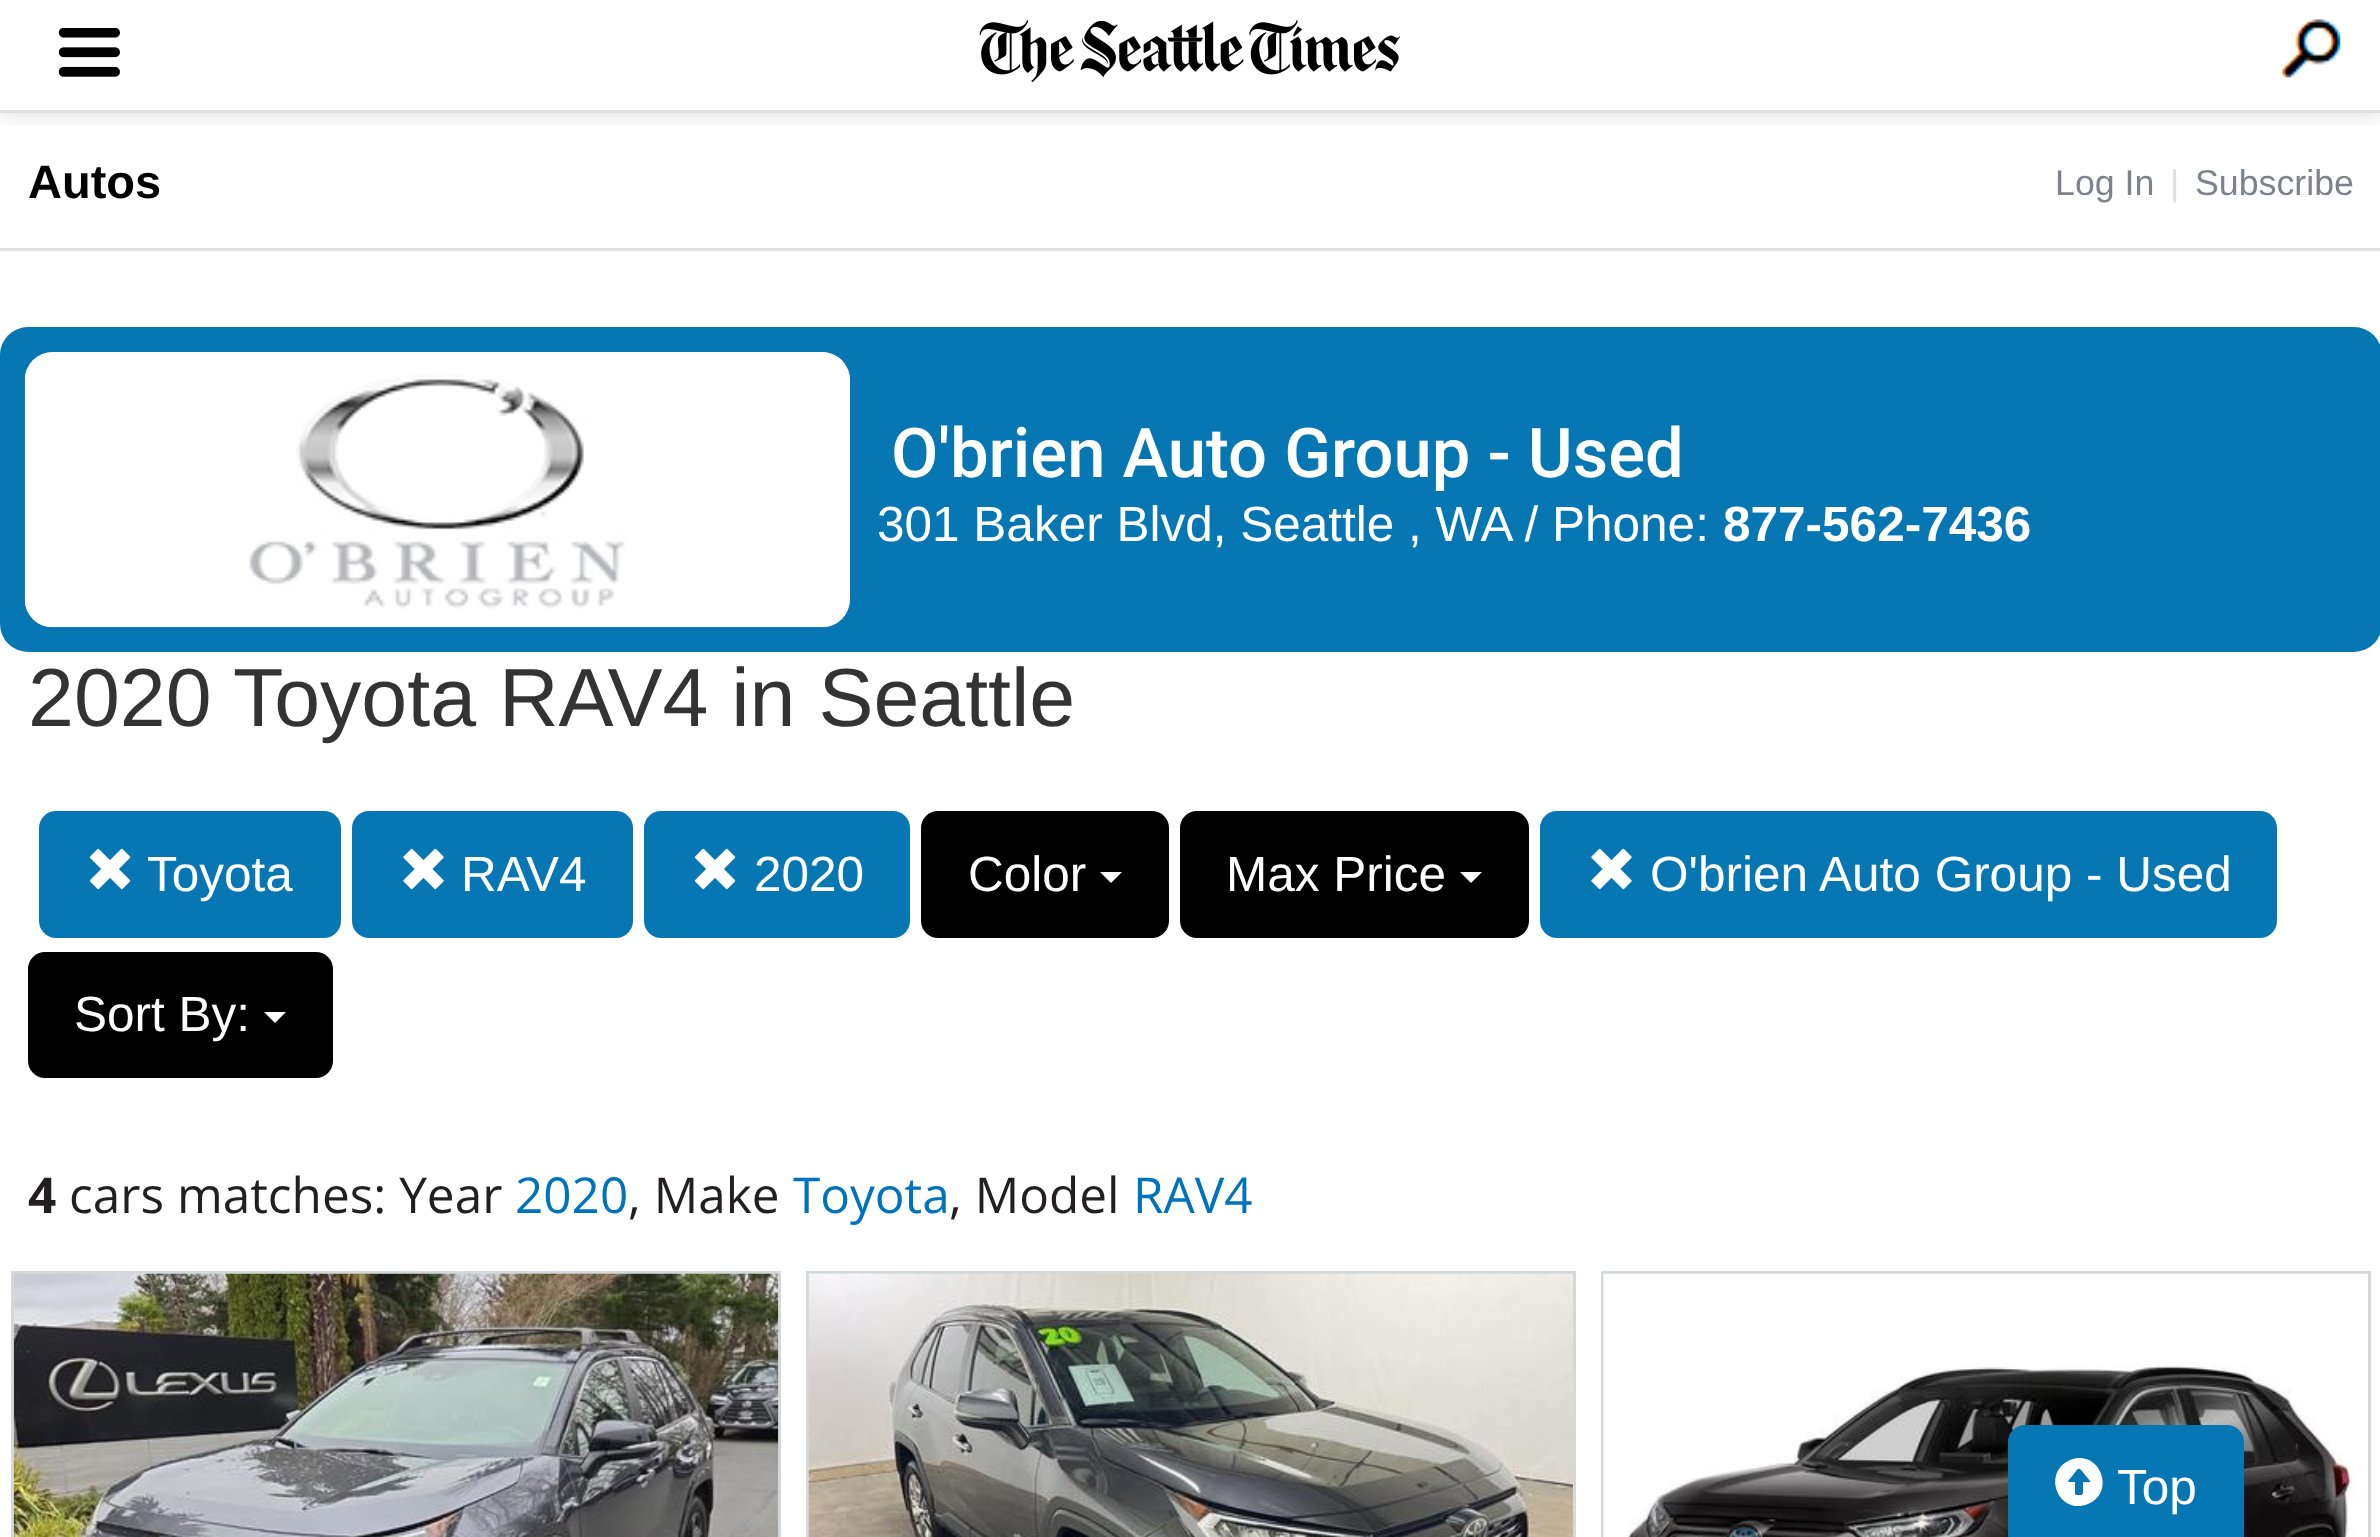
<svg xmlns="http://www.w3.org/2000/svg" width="2380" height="1537">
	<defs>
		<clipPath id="clip1"><rect x="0" y="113" width="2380" height="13" /></clipPath>
	</defs>
	<rect width="100%" height="100%" fill="#FFFFFF" />
	<g clip-path="url(#clip1)">
		<rect x="0" y="-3" width="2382" height="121" fill="#000000" fill-opacity="0.1" filter="blur(9.5px)" />
	</g>
	<rect x="0" y="110" width="2380" height="3" fill="#E0E0E0" />
	<image x="58" y="28" width="62" height="49" href="assets/img1.png" />
	<image x="979" y="19" width="421" height="63" href="assets/img2.png" />
	<image x="2282" y="19" width="59" height="59" href="assets/img3.png" />
	<rect x="0" y="248" width="2380" height="3" fill="#E0E0E0" />
	<text x="28" y="198" font-family="Liberation Sans" font-size="47" font-weight="700" fill="#000000">Autos</text>
	<text x="2055" y="195" font-family="Liberation Sans" font-size="35.75" fill="#7E838B">Log In</text>
	<text x="2170" y="195" font-family="Liberation Sans" font-size="35.75" fill="#E0E0E0">|</text>
	<text x="2195" y="195" font-family="Liberation Sans" font-size="35.75" fill="#7E838B">Subscribe</text>
	<rect x="0" y="327" width="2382" height="325" rx="28" fill="#0777B3" />
	<rect x="25" y="352" width="825" height="275" rx="28" fill="#FFFFFF" />
	<image x="24" y="352" width="826" height="276" href="assets/img4.png" />
	<text x="891" y="477" font-family="Roboto" font-size="68.75" font-weight="500" fill="#FFFFFF">O'brien Auto Group - Used</text>
	<text x="877" y="541" font-family="Liberation Sans" font-size="49.5" fill="#FFFFFF">301 Baker Blvd, Seattle , WA / Phone:</text>
	<text x="1723" y="541" font-family="Liberation Sans" font-size="49.5" font-weight="700" fill="#FFFFFF">877-562-7436</text>
	<text x="28" y="726" font-family="Liberation Sans" font-size="82.5" fill="#333333">2020 Toyota RAV4 in Seattle</text>
	<rect x="39" y="811" width="302" height="127" rx="17" fill="#0777B3" />
	<image x="89" y="848" width="42" height="42" href="assets/img5.png" />
	<text x="147" y="891" font-family="Liberation Sans" font-size="49.5" fill="#FFFFFF">Toyota</text>
	<rect x="352" y="811" width="281" height="127" rx="17" fill="#0777B3" />
	<image x="403" y="848" width="41" height="42" href="assets/img6.png" />
	<text x="461" y="891" font-family="Liberation Sans" font-size="49.5" fill="#FFFFFF">RAV4</text>
	<rect x="644" y="811" width="266" height="127" rx="17" fill="#0777B3" />
	<image x="694" y="848" width="42" height="42" href="assets/img5.png" />
	<text x="754" y="891" font-family="Liberation Sans" font-size="49.5" fill="#FFFFFF">2020</text>
	<rect x="921" y="811" width="248" height="127" rx="17" fill="#000000" />
	<text x="968" y="891" font-family="Liberation Sans" font-size="49.5" fill="#FFFFFF">Color</text>
	<path d="M1100 872H1122L1111 883Z" fill="#FFFFFF" />
	<rect x="1180" y="811" width="349" height="127" rx="17" fill="#000000" />
	<text x="1226" y="891" font-family="Liberation Sans" font-size="49.5" fill="#FFFFFF">Max Price</text>
	<path d="M1460 872H1482L1471 883Z" fill="#FFFFFF" />
	<rect x="1540" y="811" width="737" height="127" rx="17" fill="#0777B3" />
	<image x="1591" y="848" width="41" height="42" href="assets/img6.png" />
	<text x="1650" y="891" font-family="Liberation Sans" font-size="49.5" fill="#FFFFFF">O'brien Auto Group - Used</text>
	<rect x="28" y="952" width="305" height="126" rx="17" fill="#000000" />
	<text x="74" y="1031" font-family="Liberation Sans" font-size="49.5" fill="#FFFFFF">Sort By:</text>
	<path d="M264 1012H286L275 1023Z" fill="#FFFFFF" />
	<text x="28" y="1213" font-family="Open Sans" font-size="49.5" font-weight="700" fill="#231F20">4</text>
	<text x="69" y="1213" font-family="Open Sans" font-size="49.5" fill="#231F20">cars matches: Year</text>
	<text x="515" y="1213" font-family="Open Sans" font-size="49.5" fill="#0073BD">2020</text>
	<text x="628" y="1213" font-family="Open Sans" font-size="49.5" fill="#231F20">, Make</text>
	<text x="793" y="1213" font-family="Open Sans" font-size="49.5" fill="#0073BD">Toyota</text>
	<text x="949" y="1213" font-family="Open Sans" font-size="49.5" fill="#231F20">, Model</text>
	<text x="1133" y="1213" font-family="Open Sans" font-size="49.5" fill="#0073BD">RAV4</text>
	<rect x="12.5" y="1272.5" width="767" height="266" fill="none" stroke="#D4D8D9" stroke-width="3" />
	<image x="13" y="1273" width="766" height="264" href="assets/img7.png" />
	<rect x="807.5" y="1272.5" width="767" height="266" fill="none" stroke="#D4D8D9" stroke-width="3" />
	<image x="808" y="1273" width="765" height="264" href="assets/img8.png" />
	<rect x="1602.5" y="1272.5" width="767" height="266" fill="none" stroke="#D4D8D9" stroke-width="3" />
	<image x="1603" y="1273" width="765" height="264" href="assets/img9.png" />
	<rect x="2009.5" y="1426.5" width="233" height="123" rx="15.5" fill="#0777B3" stroke="#0777B3" stroke-width="3" />
	<path d="M2070 1460C2099 1448 2117 1492 2088 1504C2059 1516 2041 1473 2070 1460ZM2090 1481L2082 1471C2078 1466 2077 1470 2073 1475C2067 1483 2065 1482 2075 1482V1492C2075 1495 2075 1495 2079 1495C2083 1495 2083 1495 2083 1492V1482C2084 1482 2092 1483 2090 1481Z" fill="#FFFFFF" />
	<text x="2117" y="1504" font-family="Liberation Sans" font-size="49.5" fill="#FFFFFF">Top</text>
</svg>
